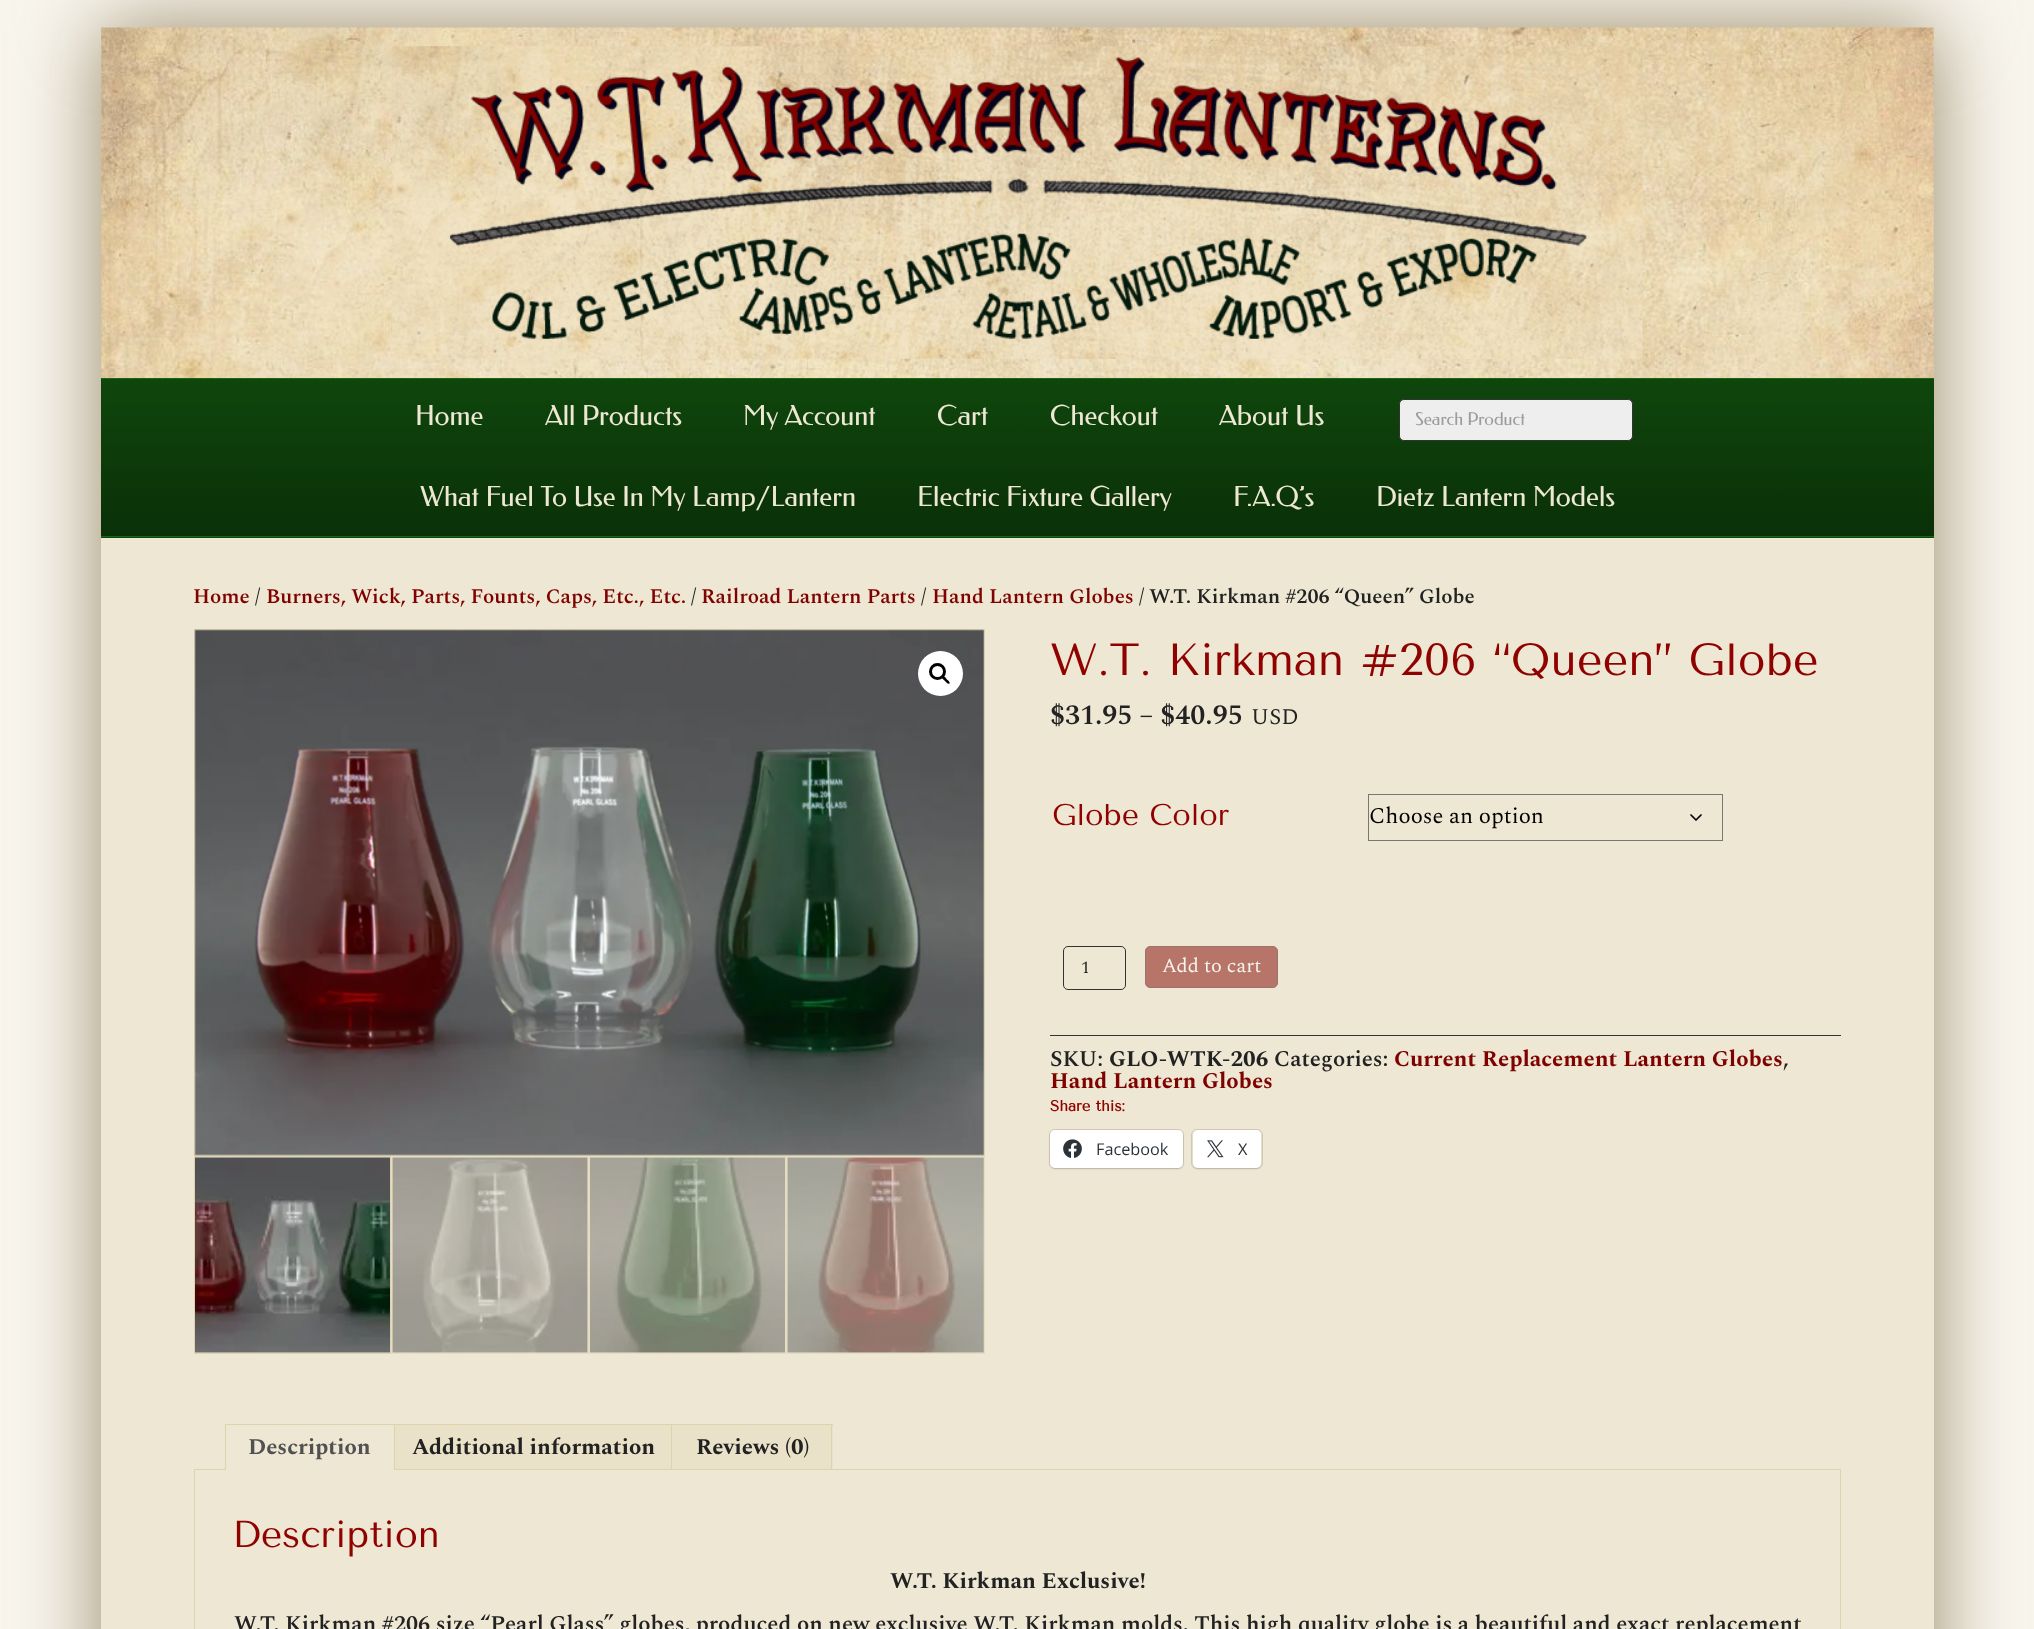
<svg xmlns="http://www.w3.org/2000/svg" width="2034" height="1629">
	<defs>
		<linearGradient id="g1" gradientUnits="userSpaceOnUse" x1="1018" y1="379" x2="1018" y2="536"><stop offset="0" stop-color="#0F460C" /><stop offset="1" stop-color="#0A3008" /></linearGradient>
		<linearGradient id="g2" gradientUnits="userSpaceOnUse" x1="1018" y1="536" x2="1018" y2="694"><stop offset="0" stop-color="#0F460C" /><stop offset="1" stop-color="#0A3008" /></linearGradient>
	</defs>
	<rect width="100%" height="100%" fill="#F8F5ED" />
	<rect x="101" y="28" width="1833" height="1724" fill="#998968" filter="blur(41px)" />
	<image x="101" y="27" width="1833" height="351" href="assets/img1.png" />
	<image x="392" y="46" width="1251" height="313" href="assets/img2.png" />
	<rect x="101" y="379" width="1833" height="157" fill="url(#g1)" />
	<rect x="101" y="537" width="1833" height="1" fill="url(#g2)" />
	<rect x="101" y="378" width="1833" height="1" fill="#166911" />
	<rect x="101" y="536" width="1833" height="1" fill="#166911" />
	<g font-family="Federo" font-size="27.5" fill="#EDE7D3">
		<text x="415" y="425">Home</text>
		<text x="545" y="425">All Products</text>
		<text x="743" y="425">My Account</text>
		<text x="937" y="425">Cart</text>
		<text x="1050" y="425">Checkout</text>
		<text x="1219" y="425">About Us</text>
	</g>
	<rect x="1399.5" y="399.5" width="233" height="41" rx="4.5" fill="#EEEEEE" stroke="#333333" />
	<text x="1415" y="425" font-family="Federo" font-size="17.5" fill="#9C9C9C">Search Product</text>
	<g font-family="Federo" font-size="27.5" fill="#EDE7D3">
		<text x="420" y="506">What Fuel To Use In My Lamp/Lantern</text>
		<text x="917" y="506">Electric Fixture Gallery</text>
		<text x="1233" y="506">F.A.Q’s</text>
		<text x="1376" y="506">Dietz Lantern Models</text>
	</g>
	<rect x="101" y="538" width="1833" height="1091" fill="#EDE7D3" />
	<text x="193" y="603" font-family="Spectral" font-size="20.7" font-weight="600" fill="#800200">Home</text>
	<text x="255" y="603" font-family="Spectral" font-size="20.7" font-weight="600" fill="#222222">/</text>
	<text x="266" y="603" font-family="Spectral" font-size="20.7" font-weight="600" fill="#800200">Burners, Wick, Parts, Founts, Caps, Etc., Etc.</text>
	<text x="691" y="603" font-family="Spectral" font-size="20.7" font-weight="600" fill="#222222">/</text>
	<text x="701" y="603" font-family="Spectral" font-size="20.7" font-weight="600" fill="#800200">Railroad Lantern Parts</text>
	<text x="921" y="603" font-family="Spectral" font-size="20.7" font-weight="600" fill="#222222">/</text>
	<text x="932" y="603" font-family="Spectral" font-size="20.7" font-weight="600" fill="#800200">Hand Lantern Globes</text>
	<text x="1139" y="603" font-family="Spectral" font-size="20.7" font-weight="600" fill="#222222">/ W.T. Kirkman #206 “Queen” Globe</text>
	<rect x="194.5" y="629.5" width="790" height="526" fill="none" stroke="#DED3AF" />
	<image x="194" y="629" width="791" height="527" href="assets/img3.png" />
	<circle cx="940.5" cy="673.5" r="22.5" fill="#FFFFFF" />
	<circle cx="937.5" cy="671.5" r="7" fill="none" stroke="#000000" stroke-width="3" />
	<path d="M942 676.5C943.5 675 946 678 946.5 679C947.5 680 950.5 682 949.5 683.5C948 685 945.5 681.5 945 681C944 680 941 678 942 676.5Z" fill="#000000" />
	<rect x="194.5" y="1156.5" width="196" height="197" fill="none" stroke="#DED3AF" />
	<image x="195" y="1157" width="195" height="196" href="assets/img4.png" />
	<rect x="391.5" y="1156.5" width="197" height="197" fill="none" stroke="#E6DDC1" />
	<image x="392" y="1157" width="196" height="196" href="assets/img5.png" />
	<rect x="589.5" y="1156.5" width="196" height="197" fill="none" stroke="#E6DDC1" />
	<image x="590" y="1157" width="195" height="196" href="assets/img6.png" />
	<rect x="786.5" y="1156.5" width="198" height="197" fill="none" stroke="#E6DDC1" />
	<image x="787" y="1157" width="197" height="196" href="assets/img7.png" />
	<text x="1050" y="675" font-family="Tenor Sans" font-size="45" fill="#900200">W.T. Kirkman #206 “Queen” Globe</text>
	<text x="1050" y="724" font-family="Spectral" font-size="28" font-weight="600" fill="#222222">$31.95 – $40.95</text>
	<text x="1251" y="724" font-family="Spectral" font-size="22.5" fill="#222222">USD</text>
	<text x="1052" y="825" font-family="Tenor Sans" font-size="30" fill="#900200">Globe Color</text>
	<path d="M1691 815L1696 820L1701 815" fill="none" stroke="#000000" stroke-width="1.7" stroke-linecap="round" stroke-linejoin="round" />
	<rect x="1368.5" y="794.5" width="354" height="46" fill="none" stroke="#767676" />
	<text x="1369" y="823" font-family="Spectral" font-size="22.5" fill="#000000">Choose an option</text>
	<rect x="1063.5" y="946.5" width="62" height="43" rx="4.5" fill="none" stroke="#333333" />
	<text x="1081" y="973" font-family="Spectral" font-size="17.5" fill="#222222">1</text>
	<rect x="1145.5" y="946.5" width="132" height="41" rx="4.5" fill="#B7756A" stroke="#98746A" />
	<text x="1162" y="972" font-family="Spectral" font-size="20" fill="#F6F3E9">Add to cart</text>
	<rect x="1050" y="1035" width="791" height="1" fill="#333333" />
	<text x="1050" y="1066" font-family="Spectral" font-size="22.5" font-weight="600" fill="#222222">SKU:</text>
	<text x="1109" y="1066" font-family="Spectral" font-size="22.5" font-weight="700" fill="#222222">GLO-WTK-206</text>
	<text x="1274" y="1066" font-family="Spectral" font-size="22.5" font-weight="600" fill="#222222">Categories:</text>
	<text x="1394" y="1066" font-family="Spectral" font-size="22.5" font-weight="700" fill="#800200">Current Replacement Lantern Globes</text>
	<text x="1783" y="1066" font-family="Spectral" font-size="22.5" font-weight="600" fill="#222222">,</text>
	<text x="1050" y="1088" font-family="Spectral" font-size="22.5" font-weight="700" fill="#800200">Hand Lantern Globes</text>
	<text x="1050" y="1111" font-family="Tenor Sans" font-size="15" font-weight="700" fill="#900200">Share this:</text>
	<rect x="1049.5" y="1129.5" width="134" height="39" rx="5.5" fill="none" stroke="#D1CBBA" />
	<rect x="1050" y="1131" width="133" height="38" rx="5" fill="#000000" fill-opacity="0.12" filter="blur(1px)" />
	<rect x="1050" y="1130" width="133" height="38" rx="5" fill="#FFFFFF" />
	<image x="1063" y="1139" width="19" height="19" href="assets/img8.png" />
	<text x="1096" y="1155" font-family="Open Sans" font-size="16.25" fill="#2C3338">Facebook</text>
	<rect x="1191.5" y="1129.5" width="71" height="39" rx="5.5" fill="none" stroke="#D1CBBA" />
	<rect x="1193" y="1131" width="68" height="38" rx="5" fill="#000000" fill-opacity="0.12" filter="blur(1px)" />
	<rect x="1193" y="1130" width="68" height="38" rx="5" fill="#FFFFFF" />
	<image x="1207" y="1140" width="17" height="18" href="assets/img9.png" />
	<text x="1238" y="1155" font-family="Open Sans" font-size="16.25" fill="#2C3338">X</text>
	<rect x="225" y="1424" width="608" height="1" fill="#DED3AF" />
	<rect x="672" y="1425" width="161" height="44" fill="#E9E1C8" />
	<rect x="831" y="1424" width="1" height="46" fill="#DED3AF" />
	<rect x="671" y="1424" width="1" height="46" fill="#DED3AF" />
	<rect x="194" y="1469" width="1647" height="1" fill="#DED3AF" />
	<rect x="226" y="1469" width="168" height="1" fill="#EDE7D3" />
	<rect x="394" y="1424" width="1" height="46" fill="#DED3AF" />
	<rect x="225" y="1424" width="1" height="46" fill="#DED3AF" />
	<text x="248" y="1454" font-family="Spectral" font-size="22.5" font-weight="700" fill="#515151">Description</text>
	<rect x="395" y="1425" width="276" height="44" fill="#E9E1C8" />
	<g font-family="Spectral" font-size="22.5" font-weight="700" fill="#222222">
		<text x="412" y="1454">Additional information</text>
		<text x="696" y="1454">Reviews (0)</text>
	</g>
	<rect x="1840" y="1470" width="1" height="159" fill="#DED3AF" />
	<rect x="194" y="1470" width="1" height="159" fill="#DED3AF" />
	<text x="232" y="1547" font-family="Tenor Sans" font-size="37.5" fill="#900200">Description</text>
	<text x="890" y="1588" font-family="Spectral" font-size="22.5" font-weight="700" fill="#222222">W.T. Kirkman Exclusive!</text>
	<text x="234" y="1631" font-family="Spectral" font-size="22.5" font-weight="600" fill="#222222">W.T. Kirkman #206 size “Pearl Glass” globes, produced on new exclusive W.T. Kirkman molds. This high quality globe is a beautiful and exact replacement</text>
</svg>
